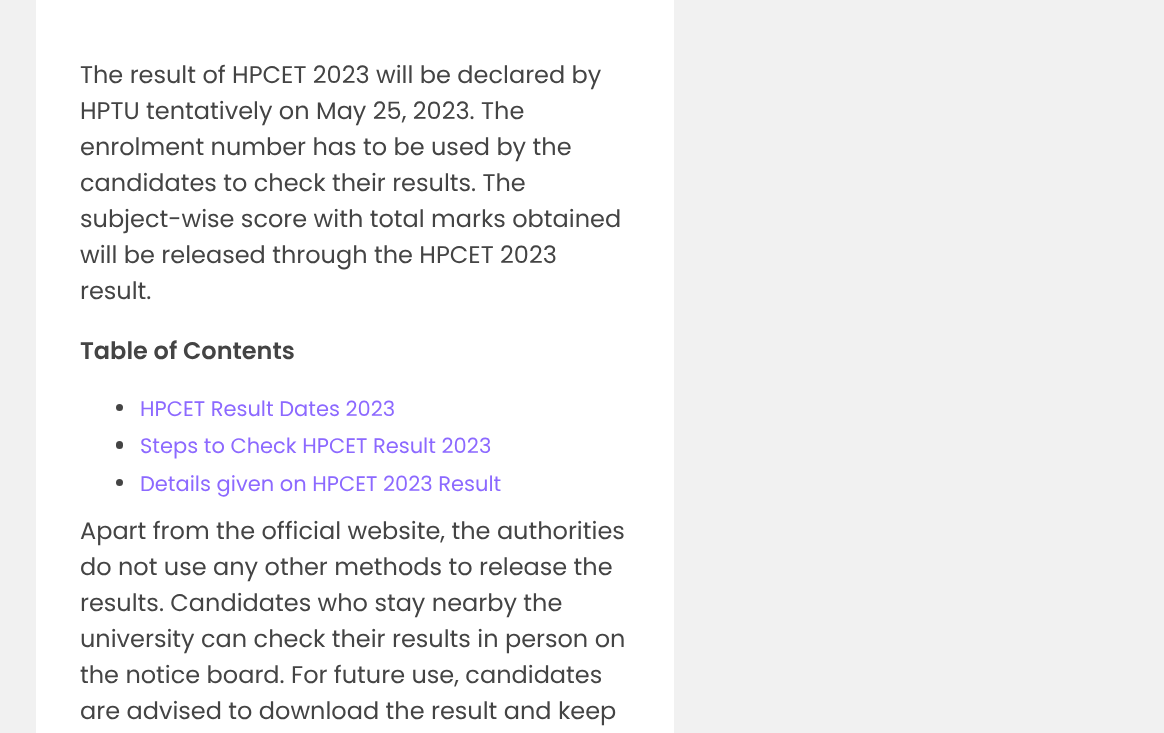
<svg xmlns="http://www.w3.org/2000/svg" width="1164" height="733">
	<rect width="100%" height="100%" fill="#F1F1F1" />
	<rect x="36" y="0" width="638" height="733" fill="#FFFFFF" />
	<g font-family="Poppins" font-size="24" fill="#444444">
		<text x="80" y="83">The result of HPCET 2023 will be declared by</text>
		<text x="80" y="119">HPTU tentatively on May 25, 2023. The</text>
		<text x="80" y="155">enrolment number has to be used by the</text>
		<text x="80" y="191">candidates to check their results. The</text>
		<text x="80" y="227">subject-wise score with total marks obtained</text>
		<text x="80" y="263">will be released through the HPCET 2023</text>
		<text x="80" y="299">result.</text>
	</g>
	<text x="80" y="359" font-family="Poppins" font-size="24" font-weight="600" fill="#444444">Table of Contents</text>
	<circle cx="119.5" cy="407.5" r="3.5" fill="#444444" />
	<text x="140" y="416" font-family="Poppins" font-size="21" fill="#8C69FF">HPCET Result Dates 2023</text>
	<rect x="116" y="441" width="7" height="8" rx="3.5" fill="#444444" />
	<text x="140" y="453" font-family="Poppins" font-size="21" fill="#8C69FF">Steps to Check HPCET Result 2023</text>
	<circle cx="119.5" cy="482.5" r="3.5" fill="#444444" />
	<text x="140" y="491" font-family="Poppins" font-size="21" fill="#8C69FF">Details given on HPCET 2023 Result</text>
	<g font-family="Poppins" font-size="24" fill="#444444">
		<text x="80" y="539">Apart from the official website, the authorities</text>
		<text x="80" y="575">do not use any other methods to release the</text>
		<text x="80" y="611">results. Candidates who stay nearby the</text>
		<text x="80" y="647">university can check their results in person on</text>
		<text x="80" y="683">the notice board. For future use, candidates</text>
		<text x="80" y="719">are advised to download the result and keep</text>
	</g>
</svg>
